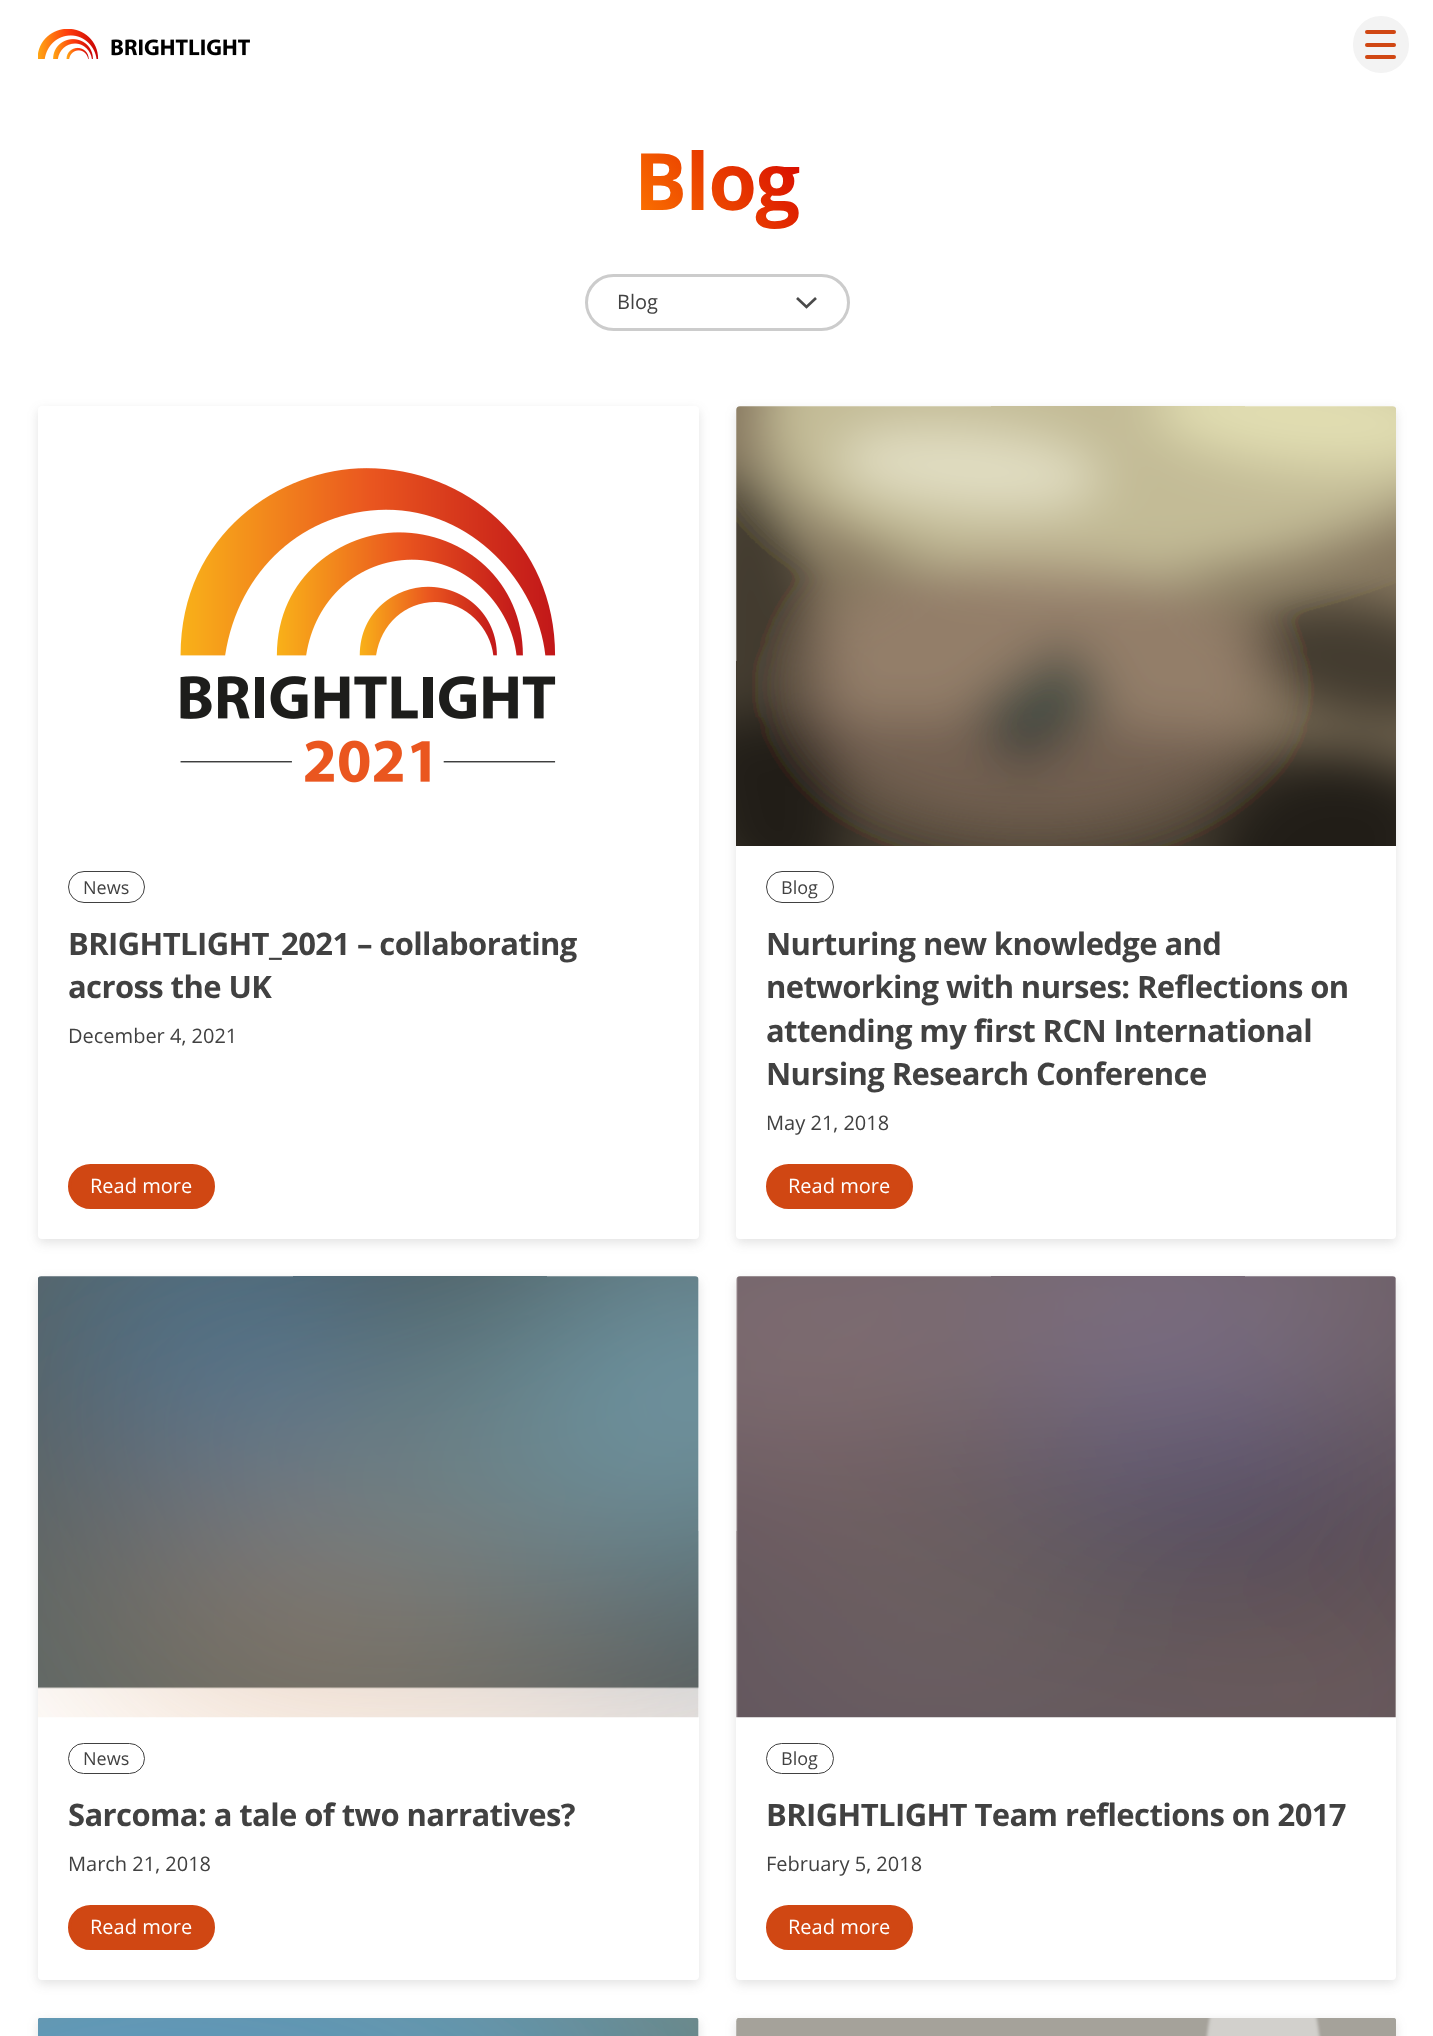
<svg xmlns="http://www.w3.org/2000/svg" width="1433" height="2036">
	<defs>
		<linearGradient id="g1" gradientUnits="userSpaceOnUse" x1="635" y1="238" x2="798" y2="123"><stop offset="0" stop-color="#FE7B00" /><stop offset="1" stop-color="#D40000" /></linearGradient>
	</defs>
	<rect width="100%" height="100%" fill="#FFFFFF" />
	<image x="38" y="29" width="212" height="30" href="assets/img1.png" />
	<rect x="1354.5" y="17.5" width="53" height="54" rx="26.5" fill="#F3F3F3" stroke="#F3F3F3" stroke-width="3" />
	<rect x="1365" y="30" width="31" height="4" rx="2" fill="#D04713" />
	<rect x="1365" y="43" width="31" height="4" rx="2" fill="#D04713" />
	<rect x="1365" y="55" width="31" height="4" rx="2" fill="#D04713" />
	<text x="634" y="210" font-family="Open Sans" font-size="79" font-weight="700" letter-spacing="-1.5" fill="url(#g1)">Blog</text>
	<path d="M797 298L806.5 307L816 298" fill="none" stroke="#4A4A4A" stroke-width="2.7" />
	<rect x="586.5" y="275.5" width="262" height="54" rx="27" fill="none" stroke="#CCCCCC" stroke-width="3" />
	<text x="617" y="309" font-family="Open Sans" font-size="20" fill="#414141">Blog</text>
	<rect x="38" y="410" width="661" height="833" rx="4" fill="#414141" fill-opacity="0.15" filter="blur(5.5px)" />
	<rect x="38" y="406" width="661" height="833" rx="4" fill="#FFFFFF" />
	<image x="180" y="468" width="376" height="315" href="assets/img2.png" />
	<rect x="68.5" y="871.5" width="76" height="31" rx="15.5" fill="none" stroke="#414141" />
	<text x="83" y="894" font-family="Open Sans" font-size="18" fill="#414141">News</text>
	<g font-family="Open Sans" font-size="31" font-weight="700" letter-spacing="-0.6" fill="#414141">
		<text x="68" y="955">BRIGHTLIGHT_2021 – collaborating</text>
		<text x="68" y="998">across the UK</text>
	</g>
	<text x="68" y="1043" font-family="Open Sans" font-size="20" fill="#414141">December 4, 2021</text>
	<rect x="69.5" y="1165.5" width="144" height="42" rx="21" fill="#D04713" stroke="#D04713" stroke-width="3" />
	<text x="90" y="1193" font-family="Open Sans" font-size="20" fill="#FFFFFF">Read more</text>
	<rect x="736" y="410" width="660" height="833" rx="4" fill="#414141" fill-opacity="0.15" filter="blur(5.5px)" />
	<rect x="736" y="406" width="660" height="833" rx="4" fill="#FFFFFF" />
	<image x="736" y="406" width="660" height="440" href="assets/img3.png" />
	<rect x="766.5" y="871.5" width="67" height="31" rx="15.5" fill="none" stroke="#414141" />
	<text x="781" y="894" font-family="Open Sans" font-size="18" fill="#414141">Blog</text>
	<g font-family="Open Sans" font-size="31" font-weight="700" letter-spacing="-0.6" fill="#414141">
		<text x="766" y="955">Nurturing new knowledge and</text>
		<text x="766" y="998">networking with nurses: Reflections on</text>
		<text x="766" y="1042">attending my first RCN International</text>
		<text x="766" y="1085">Nursing Research Conference</text>
	</g>
	<text x="766" y="1130" font-family="Open Sans" font-size="20" fill="#414141">May 21, 2018</text>
	<rect x="767.5" y="1165.5" width="144" height="42" rx="21" fill="#D04713" stroke="#D04713" stroke-width="3" />
	<text x="788" y="1193" font-family="Open Sans" font-size="20" fill="#FFFFFF">Read more</text>
	<rect x="38" y="1280" width="661" height="704" rx="4" fill="#414141" fill-opacity="0.15" filter="blur(5.5px)" />
	<rect x="38" y="1276" width="661" height="704" rx="4" fill="#FFFFFF" />
	<image x="38" y="1276" width="661" height="442" href="assets/img4.png" />
	<rect x="68.5" y="1743.5" width="76" height="30" rx="15" fill="none" stroke="#414141" />
	<text x="83" y="1765" font-family="Open Sans" font-size="18" fill="#414141">News</text>
	<text x="68" y="1826" font-family="Open Sans" font-size="31" font-weight="700" letter-spacing="-0.6" fill="#414141">Sarcoma: a tale of two narratives?</text>
	<text x="68" y="1871" font-family="Open Sans" font-size="20" fill="#414141">March 21, 2018</text>
	<rect x="69.5" y="1906.5" width="144" height="42" rx="21" fill="#D04713" stroke="#D04713" stroke-width="3" />
	<text x="90" y="1934" font-family="Open Sans" font-size="20" fill="#FFFFFF">Read more</text>
	<rect x="736" y="1280" width="660" height="704" rx="4" fill="#414141" fill-opacity="0.15" filter="blur(5.5px)" />
	<rect x="736" y="1276" width="660" height="704" rx="4" fill="#FFFFFF" />
	<image x="736" y="1276" width="660" height="442" href="assets/img5.png" />
	<rect x="766.5" y="1743.5" width="67" height="30" rx="15" fill="none" stroke="#414141" />
	<text x="781" y="1765" font-family="Open Sans" font-size="18" fill="#414141">Blog</text>
	<text x="766" y="1826" font-family="Open Sans" font-size="31" font-weight="700" letter-spacing="-0.6" fill="#414141">BRIGHTLIGHT Team reflections on 2017</text>
	<text x="766" y="1871" font-family="Open Sans" font-size="20" fill="#414141">February 5, 2018</text>
	<rect x="767.5" y="1906.5" width="144" height="42" rx="21" fill="#D04713" stroke="#D04713" stroke-width="3" />
	<text x="788" y="1934" font-family="Open Sans" font-size="20" fill="#FFFFFF">Read more</text>
	<rect x="38" y="2021" width="661" height="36" rx="4" fill="#414141" fill-opacity="0.15" filter="blur(5.5px)" />
	<rect x="38" y="2018" width="661" height="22" rx="4" fill="#FFFFFF" />
	<image x="38" y="2018" width="661" height="18" href="assets/img6.png" />
	<rect x="736" y="2021" width="660" height="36" rx="4" fill="#414141" fill-opacity="0.15" filter="blur(5.5px)" />
	<image x="736" y="2018" width="660" height="18" href="assets/img7.png" />
</svg>
